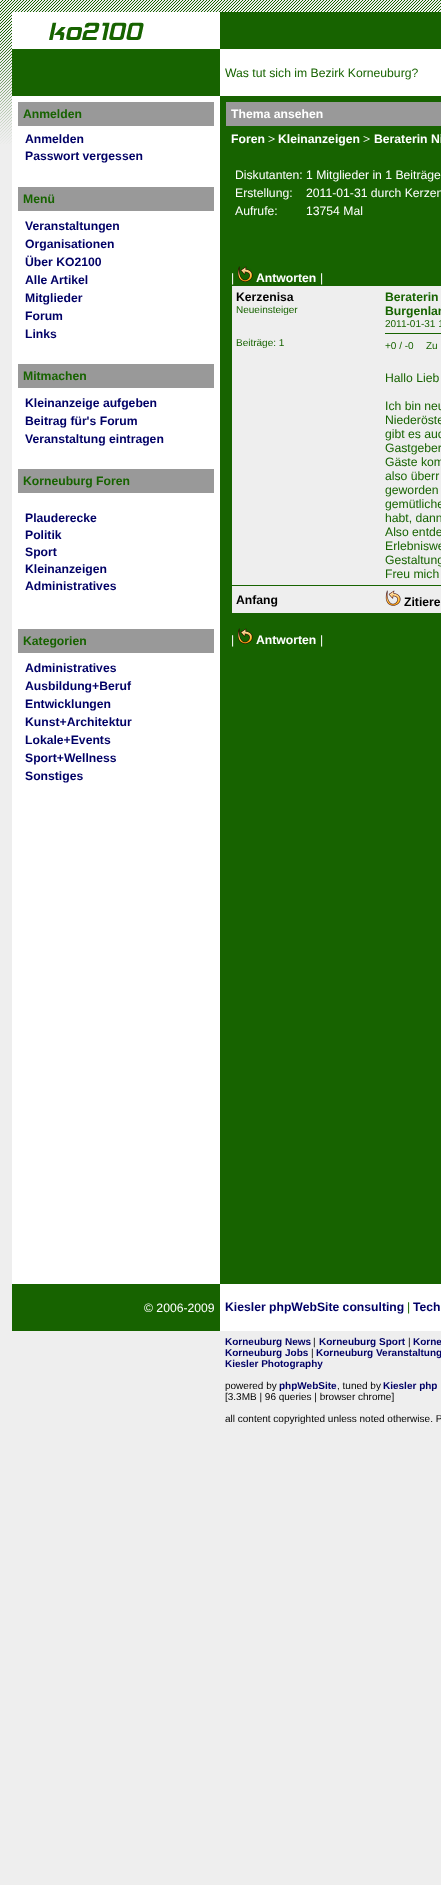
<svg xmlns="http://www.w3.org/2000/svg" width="441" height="1885">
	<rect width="100%" height="100%" fill="#EEEEEE" />
	<image x="0" y="0" width="441" height="144" href="assets/img1.png" />
	<rect x="12" y="12" width="208" height="37" fill="#FFFFFF" />
	<image x="17" y="17" width="130" height="27" href="assets/img2.png" />
	<rect x="220" y="12" width="221" height="37" fill="#176300" />
	<rect x="12" y="49" width="208" height="47" fill="#176300" />
	<rect x="220" y="49" width="221" height="47" fill="#FFFFFF" />
	<text x="225" y="77" font-family="Liberation Sans" font-size="12.2" fill="#176300">Was tut sich im Bezirk Korneuburg?</text>
	<rect x="12" y="96" width="208" height="1188" fill="#FFFFFF" />
	<rect x="18" y="102" width="196" height="24" fill="#999999" />
	<text x="23" y="118" font-family="Liberation Sans" font-size="12.2" font-weight="700" fill="#176300">Anmelden</text>
	<g font-family="Liberation Sans" font-size="12.2" font-weight="700" fill="#000066">
		<text x="25" y="143">Anmelden</text>
		<text x="25" y="160">Passwort vergessen</text>
	</g>
	<rect x="18" y="187" width="196" height="24" fill="#999999" />
	<text x="23" y="203" font-family="Liberation Sans" font-size="12.2" font-weight="700" fill="#176300">Menü</text>
	<g font-family="Liberation Sans" font-size="12.2" font-weight="700" fill="#000066">
		<text x="25" y="230">Veranstaltungen</text>
		<text x="25" y="248">Organisationen</text>
		<text x="25" y="266">Über KO2100</text>
		<text x="25" y="284">Alle Artikel</text>
		<text x="25" y="302">Mitglieder</text>
		<text x="25" y="320">Forum</text>
		<text x="25" y="338">Links</text>
	</g>
	<rect x="18" y="364" width="196" height="24" fill="#999999" />
	<text x="23" y="380" font-family="Liberation Sans" font-size="12.2" font-weight="700" fill="#176300">Mitmachen</text>
	<g font-family="Liberation Sans" font-size="12.2" font-weight="700" fill="#000066">
		<text x="25" y="407">Kleinanzeige aufgeben</text>
		<text x="25" y="425">Beitrag für's Forum</text>
		<text x="25" y="443">Veranstaltung eintragen</text>
	</g>
	<rect x="18" y="469" width="196" height="24" fill="#999999" />
	<text x="23" y="485" font-family="Liberation Sans" font-size="12.2" font-weight="700" fill="#176300">Korneuburg Foren</text>
	<g font-family="Liberation Sans" font-size="12.2" font-weight="700" fill="#000066">
		<text x="25" y="522">Plauderecke</text>
		<text x="25" y="539">Politik</text>
		<text x="25" y="556">Sport</text>
		<text x="25" y="573">Kleinanzeigen</text>
		<text x="25" y="590">Administratives</text>
	</g>
	<rect x="18" y="629" width="196" height="24" fill="#999999" />
	<text x="23" y="645" font-family="Liberation Sans" font-size="12.2" font-weight="700" fill="#176300">Kategorien</text>
	<g font-family="Liberation Sans" font-size="12.2" font-weight="700" fill="#000066">
		<text x="25" y="672">Administratives</text>
		<text x="25" y="690">Ausbildung+Beruf</text>
		<text x="25" y="708">Entwicklungen</text>
		<text x="25" y="726">Kunst+Architektur</text>
		<text x="25" y="744">Lokale+Events</text>
		<text x="25" y="762">Sport+Wellness</text>
		<text x="25" y="780">Sonstiges</text>
	</g>
	<rect x="220" y="96" width="221" height="1188" fill="#176300" />
	<rect x="226" y="102" width="215" height="24" fill="#999999" />
	<g font-family="Liberation Sans" font-size="12.2" font-weight="700" fill="#FFFFFF">
		<text x="231" y="118">Thema ansehen</text>
		<text x="231" y="143">Foren</text>
	</g>
	<text x="268" y="143" font-family="Liberation Sans" font-size="12.2" fill="#FFFFFF">&gt;</text>
	<text x="278" y="143" font-family="Liberation Sans" font-size="12.2" font-weight="700" fill="#FFFFFF">Kleinanzeigen</text>
	<text x="363" y="143" font-family="Liberation Sans" font-size="12.2" fill="#FFFFFF">&gt;</text>
	<text x="374" y="143" font-family="Liberation Sans" font-size="12.2" font-weight="700" fill="#FFFFFF">Beraterin Ni</text>
	<g font-family="Liberation Sans" font-size="12.2" fill="#FFFFFF">
		<text x="235" y="179">Diskutanten:</text>
		<text x="306" y="179">1 Mitglieder in 1 Beiträge</text>
		<text x="235" y="197">Erstellung:</text>
		<text x="306" y="197">2011-01-31 durch Kerzen</text>
		<text x="235" y="215">Aufrufe:</text>
		<text x="306" y="215">13754 Mal</text>
		<text x="231" y="282">|</text>
	</g>
	<image x="237" y="266" width="16" height="16" href="assets/img3.png" />
	<text x="256" y="282" font-family="Liberation Sans" font-size="12.2" font-weight="700" fill="#FFFFFF">Antworten</text>
	<text x="320" y="282" font-family="Liberation Sans" font-size="12.2" fill="#FFFFFF">|</text>
	<rect x="232" y="286" width="209" height="299" fill="#EEEEEE" />
	<text x="236" y="301" font-family="Liberation Sans" font-size="12.2" font-weight="700" fill="#000000">Kerzenisa</text>
	<g font-family="Liberation Sans" font-size="10" fill="#176300">
		<text x="236" y="313">Neueinsteiger</text>
		<text x="236" y="346">Beiträge: 1</text>
	</g>
	<g font-family="Liberation Sans" font-size="12.2" font-weight="700" fill="#176300">
		<text x="385" y="301">Beraterin</text>
		<text x="385" y="315">Burgenlan</text>
	</g>
	<rect x="385" y="333" width="56" height="1" fill="#176300" />
	<g font-family="Liberation Sans" font-size="10" fill="#176300">
		<text x="385" y="327">2011-01-31 1</text>
		<text x="385" y="349">+0 / -0</text>
		<text x="426" y="349">Zu</text>
	</g>
	<g font-family="Liberation Sans" font-size="12.2" fill="#176300">
		<text x="385" y="382">Hallo Lieb</text>
		<text x="385" y="410">Ich bin neu</text>
		<text x="385" y="424">Niederöste</text>
		<text x="385" y="438">gibt es auc</text>
		<text x="385" y="452">Gastgeber</text>
		<text x="385" y="466">Gäste kom</text>
		<text x="385" y="480">also überr</text>
		<text x="385" y="494">geworden</text>
		<text x="385" y="508">gemütliche</text>
		<text x="385" y="522">habt, dann</text>
		<text x="385" y="536">Also entde</text>
		<text x="385" y="550">Erlebniswe</text>
		<text x="385" y="564">Gestaltung</text>
		<text x="385" y="578">Freu mich</text>
	</g>
	<rect x="232" y="586" width="209" height="27" fill="#EEEEEE" />
	<text x="236" y="604" font-family="Liberation Sans" font-size="12.2" font-weight="700" fill="#000000">Anfang</text>
	<image x="385" y="590" width="16" height="16" href="assets/img4.png" />
	<text x="404" y="606" font-family="Liberation Sans" font-size="12.2" font-weight="700" fill="#000000">Zitiere</text>
	<text x="231" y="644" font-family="Liberation Sans" font-size="12.2" fill="#FFFFFF">|</text>
	<image x="237" y="628" width="16" height="16" href="assets/img3.png" />
	<text x="256" y="644" font-family="Liberation Sans" font-size="12.2" font-weight="700" fill="#FFFFFF">Antworten</text>
	<text x="320" y="644" font-family="Liberation Sans" font-size="12.2" fill="#FFFFFF">|</text>
	<rect x="12" y="1284" width="208" height="47" fill="#176300" />
	<text x="144" y="1312" font-family="Liberation Sans" font-size="12.2" fill="#FFFFFF">© 2006-2009</text>
	<rect x="220" y="1284" width="221" height="47" fill="#FFFFFF" />
	<text x="225" y="1311" font-family="Liberation Sans" font-size="12.2" font-weight="700" fill="#000066">Kiesler phpWebSite consulting</text>
	<text x="407" y="1311" font-family="Liberation Sans" font-size="12.2" fill="#176300">|</text>
	<text x="413" y="1311" font-family="Liberation Sans" font-size="12.2" font-weight="700" fill="#000066">Tech</text>
	<text x="225" y="1345" font-family="Liberation Sans" font-size="10" font-weight="700" fill="#000066">Korneuburg News</text>
	<text x="313" y="1345" font-family="Liberation Sans" font-size="10" fill="#000000">|</text>
	<text x="319" y="1345" font-family="Liberation Sans" font-size="10" font-weight="700" fill="#000066">Korneuburg Sport</text>
	<text x="408" y="1345" font-family="Liberation Sans" font-size="10" fill="#000000">|</text>
	<g font-family="Liberation Sans" font-size="10" font-weight="700" fill="#000066">
		<text x="413" y="1345">Korne</text>
		<text x="225" y="1356">Korneuburg Jobs</text>
	</g>
	<text x="311" y="1356" font-family="Liberation Sans" font-size="10" fill="#000000">|</text>
	<g font-family="Liberation Sans" font-size="10" font-weight="700" fill="#000066">
		<text x="316" y="1356">Korneuburg Veranstaltung</text>
		<text x="225" y="1367">Kiesler Photography</text>
	</g>
	<text x="225" y="1389" font-family="Liberation Sans" font-size="10" fill="#000000">powered by</text>
	<text x="279" y="1389" font-family="Liberation Sans" font-size="10" font-weight="700" fill="#000066">phpWebSite</text>
	<text x="337" y="1389" font-family="Liberation Sans" font-size="10" fill="#000000">, tuned by</text>
	<text x="383" y="1389" font-family="Liberation Sans" font-size="10" font-weight="700" fill="#000066">Kiesler php</text>
	<g font-family="Liberation Sans" font-size="10" fill="#000000">
		<text x="225" y="1400">[3.3MB | 96 queries | browser chrome]</text>
		<text x="225" y="1422">all content copyrighted unless noted otherwise. P</text>
	</g>
</svg>
